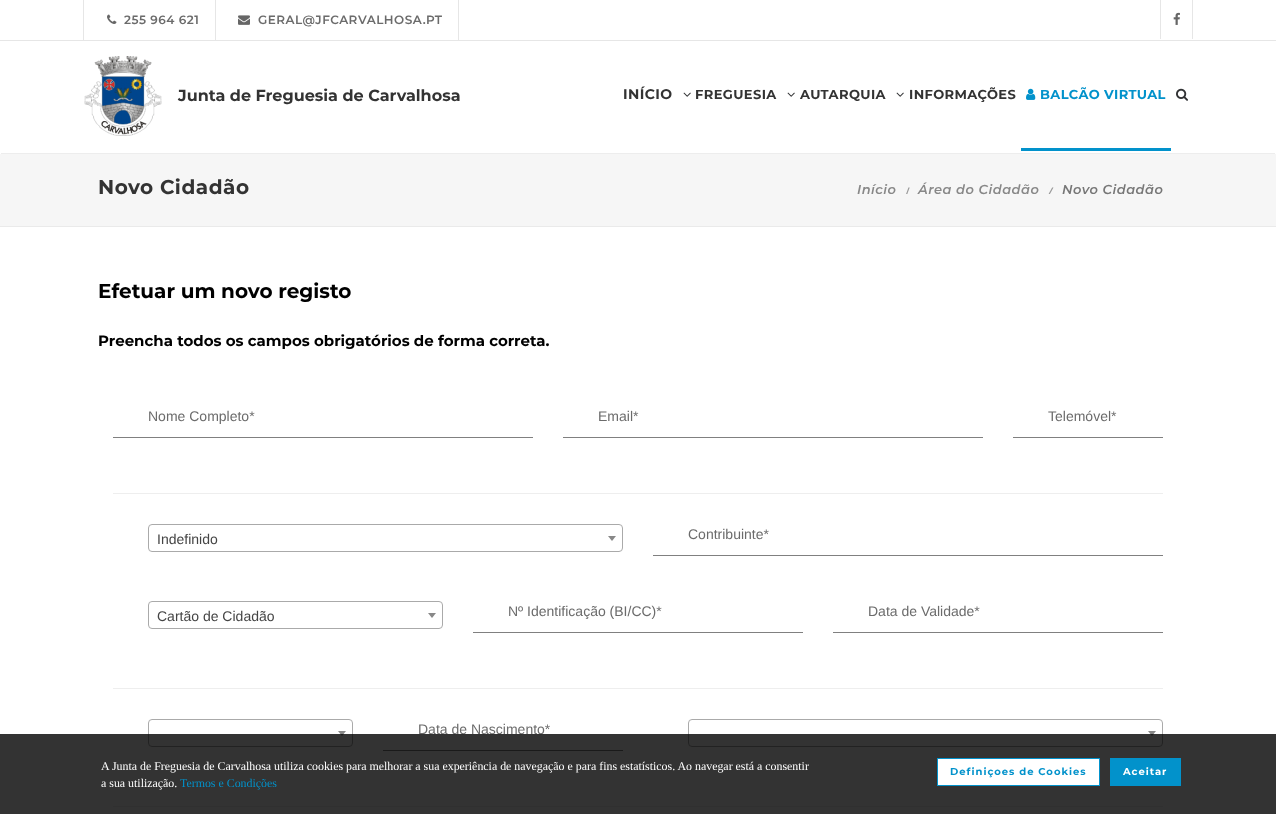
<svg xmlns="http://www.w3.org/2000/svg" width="1276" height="814">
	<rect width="100%" height="100%" fill="#F6F6F6" />
	<rect x="0" y="0" width="1276" height="154" fill="#FFFFFF" />
	<rect x="0" y="40" width="1276" height="1" fill="#E6E6E6" />
	<rect x="83" y="0" width="1" height="40" fill="#E6E6E6" />
	<image x="107" y="14" width="10" height="10" href="assets/img1.png" />
	<text x="124" y="24" font-family="Montserrat" font-size="12" font-weight="600" letter-spacing="0.5" fill="#6B6B6B">255 964 621</text>
	<rect x="458" y="0" width="1" height="40" fill="#E6E6E6" />
	<rect x="215" y="0" width="1" height="40" fill="#E6E6E6" />
	<image x="238" y="15" width="12" height="10" href="assets/img2.png" />
	<text x="258" y="24" font-family="Montserrat" font-size="12" font-weight="600" letter-spacing="0.5" fill="#6B6B6B">GERAL@JFCARVALHOSA.PT</text>
	<rect x="1192" y="0" width="1" height="39" fill="#E6E6E6" />
	<rect x="1160" y="0" width="1" height="39" fill="#E6E6E6" />
	<image x="1173" y="12" width="7" height="13" href="assets/img3.png" />
	<rect x="1" y="153" width="1274" height="1" fill="#EDEDED" />
	<image x="84" y="56" width="78" height="80" href="assets/img4.png" />
	<text x="178" y="101" font-family="Montserrat" font-size="16" font-weight="700" fill="#333333">Junta de Freguesia de Carvalhosa</text>
	<text x="623" y="99" font-family="Montserrat" font-size="14" font-weight="700" letter-spacing="0.4" fill="#333333">INÍCIO</text>
	<image x="683" y="92" width="8" height="5" href="assets/img5.png" />
	<text x="695" y="99" font-family="Montserrat" font-size="13" font-weight="700" letter-spacing="0.4" fill="#333333">FREGUESIA</text>
	<image x="787" y="92" width="8" height="5" href="assets/img5.png" />
	<text x="800" y="99" font-family="Montserrat" font-size="13" font-weight="700" letter-spacing="0.4" fill="#333333">AUTARQUIA</text>
	<image x="896" y="92" width="8" height="5" href="assets/img5.png" />
	<text x="909" y="99" font-family="Montserrat" font-size="13" font-weight="700" letter-spacing="0.4" fill="#333333">INFORMAÇÕES</text>
	<rect x="1021" y="148" width="150" height="3" fill="#0292CB" />
	<image x="1026" y="88" width="10" height="12" href="assets/img6.png" />
	<text x="1040" y="99" font-family="Montserrat" font-size="13" font-weight="700" letter-spacing="0.4" fill="#0292CB">BALCÃO VIRTUAL</text>
	<image x="1176" y="88" width="12" height="13" href="assets/img7.png" />
	<rect x="0" y="226" width="1276" height="1" fill="#EAEAEA" />
	<text x="98" y="194" font-family="Montserrat" font-size="20" font-weight="700" letter-spacing="0.5" fill="#333333">Novo Cidadão</text>
	<text x="857" y="194" font-family="Montserrat" font-size="13" font-weight="600" font-style="italic" letter-spacing="0.5" fill="#888888">Início</text>
	<text x="906" y="194" font-family="Open Sans" font-size="9" font-weight="700" fill="#999999">/</text>
	<text x="918" y="194" font-family="Montserrat" font-size="13" font-weight="600" font-style="italic" letter-spacing="0.5" fill="#888888">Área do Cidadão</text>
	<text x="1049" y="194" font-family="Open Sans" font-size="9" font-weight="700" font-style="italic" letter-spacing="0.5" fill="#999999">/</text>
	<text x="1062" y="194" font-family="Montserrat" font-size="13" font-weight="600" font-style="italic" letter-spacing="0.5" fill="#777777">Novo Cidadão</text>
	<rect x="0" y="227" width="1276" height="587" fill="#FFFFFF" />
	<text x="98" y="298" font-family="Montserrat" font-size="20" font-weight="700" fill="#000000">Efetuar um novo registo</text>
	<text x="98" y="346" font-family="Montserrat" font-size="15" font-weight="700" fill="#000000">Preencha todos os campos obrigatórios de forma correta.</text>
	<rect x="113" y="437" width="420" height="1" fill="#808080" />
	<text x="148" y="421" font-family="Liberation Sans" font-size="14" fill="#6B6B6B">Nome Completo*</text>
	<rect x="563" y="437" width="420" height="1" fill="#808080" />
	<text x="598" y="421" font-family="Liberation Sans" font-size="14" fill="#6B6B6B">Email*</text>
	<rect x="1013" y="437" width="150" height="1" fill="#808080" />
	<text x="1048" y="421" font-family="Liberation Sans" font-size="14" fill="#6B6B6B">Telemóvel*</text>
	<rect x="113" y="493" width="1050" height="1" fill="#EEEEEE" />
	<rect x="148.5" y="524.5" width="474" height="27" rx="3.5" fill="none" stroke="#AAAAAA" />
	<text x="157" y="544" font-family="Liberation Sans" font-size="14" fill="#444444">Indefinido</text>
	<path d="M608 536H616L612 541Z" fill="#888888" />
	<rect x="653" y="555" width="510" height="1" fill="#808080" />
	<text x="688" y="539" font-family="Liberation Sans" font-size="14" fill="#6B6B6B">Contribuinte*</text>
	<rect x="148.5" y="601.5" width="294" height="27" rx="3.5" fill="none" stroke="#AAAAAA" />
	<text x="157" y="621" font-family="Liberation Sans" font-size="14" fill="#444444">Cartão de Cidadão</text>
	<path d="M428 613H436L432 618Z" fill="#888888" />
	<rect x="473" y="632" width="330" height="1" fill="#808080" />
	<text x="508" y="616" font-family="Liberation Sans" font-size="14" fill="#6B6B6B">Nº Identificação (BI/CC)*</text>
	<rect x="833" y="632" width="330" height="1" fill="#808080" />
	<text x="868" y="616" font-family="Liberation Sans" font-size="14" fill="#6B6B6B">Data de Validade*</text>
	<rect x="113" y="688" width="1050" height="1" fill="#EEEEEE" />
	<rect x="148.5" y="719.5" width="204" height="27" rx="3.5" fill="none" stroke="#AAAAAA" />
	<path d="M338 731H346L342 736Z" fill="#888888" />
	<rect x="383" y="750" width="240" height="1" fill="#808080" />
	<text x="418" y="734" font-family="Liberation Sans" font-size="14" fill="#6B6B6B">Data de Nascimento*</text>
	<rect x="688.5" y="719.5" width="474" height="27" rx="3.5" fill="none" stroke="#AAAAAA" />
	<path d="M1148 731H1156L1152 736Z" fill="#888888" />
	<rect x="113" y="806" width="1050" height="1" fill="#EEEEEE" />
	<rect x="0" y="734" width="1276" height="80" fill="#000000" fill-opacity="0.8" />
	<g font-family="Liberation Serif" font-size="11.9" fill="#FFFFFF">
		<text x="101" y="770">A Junta de Freguesia de Carvalhosa utiliza cookies para melhorar a sua experiência de navegação e para fins estatísticos. Ao navegar está a consentir</text>
		<text x="101" y="787">a sua utilização.</text>
	</g>
	<text x="180" y="787" font-family="Liberation Serif" font-size="11.9" fill="#0292CB">Termos e Condições</text>
	<rect x="937.5" y="758.5" width="162" height="27" fill="#FFFFFF" stroke="#0292CB" />
	<text x="950" y="775" font-family="Montserrat" font-size="10" font-weight="700" letter-spacing="1" fill="#0292CB">Definiçoes de Cookies</text>
	<rect x="1110" y="758" width="71" height="28" fill="#0292CB" />
	<text x="1123" y="775" font-family="Montserrat" font-size="10" font-weight="700" letter-spacing="1" fill="#FFFFFF">Aceitar</text>
</svg>
